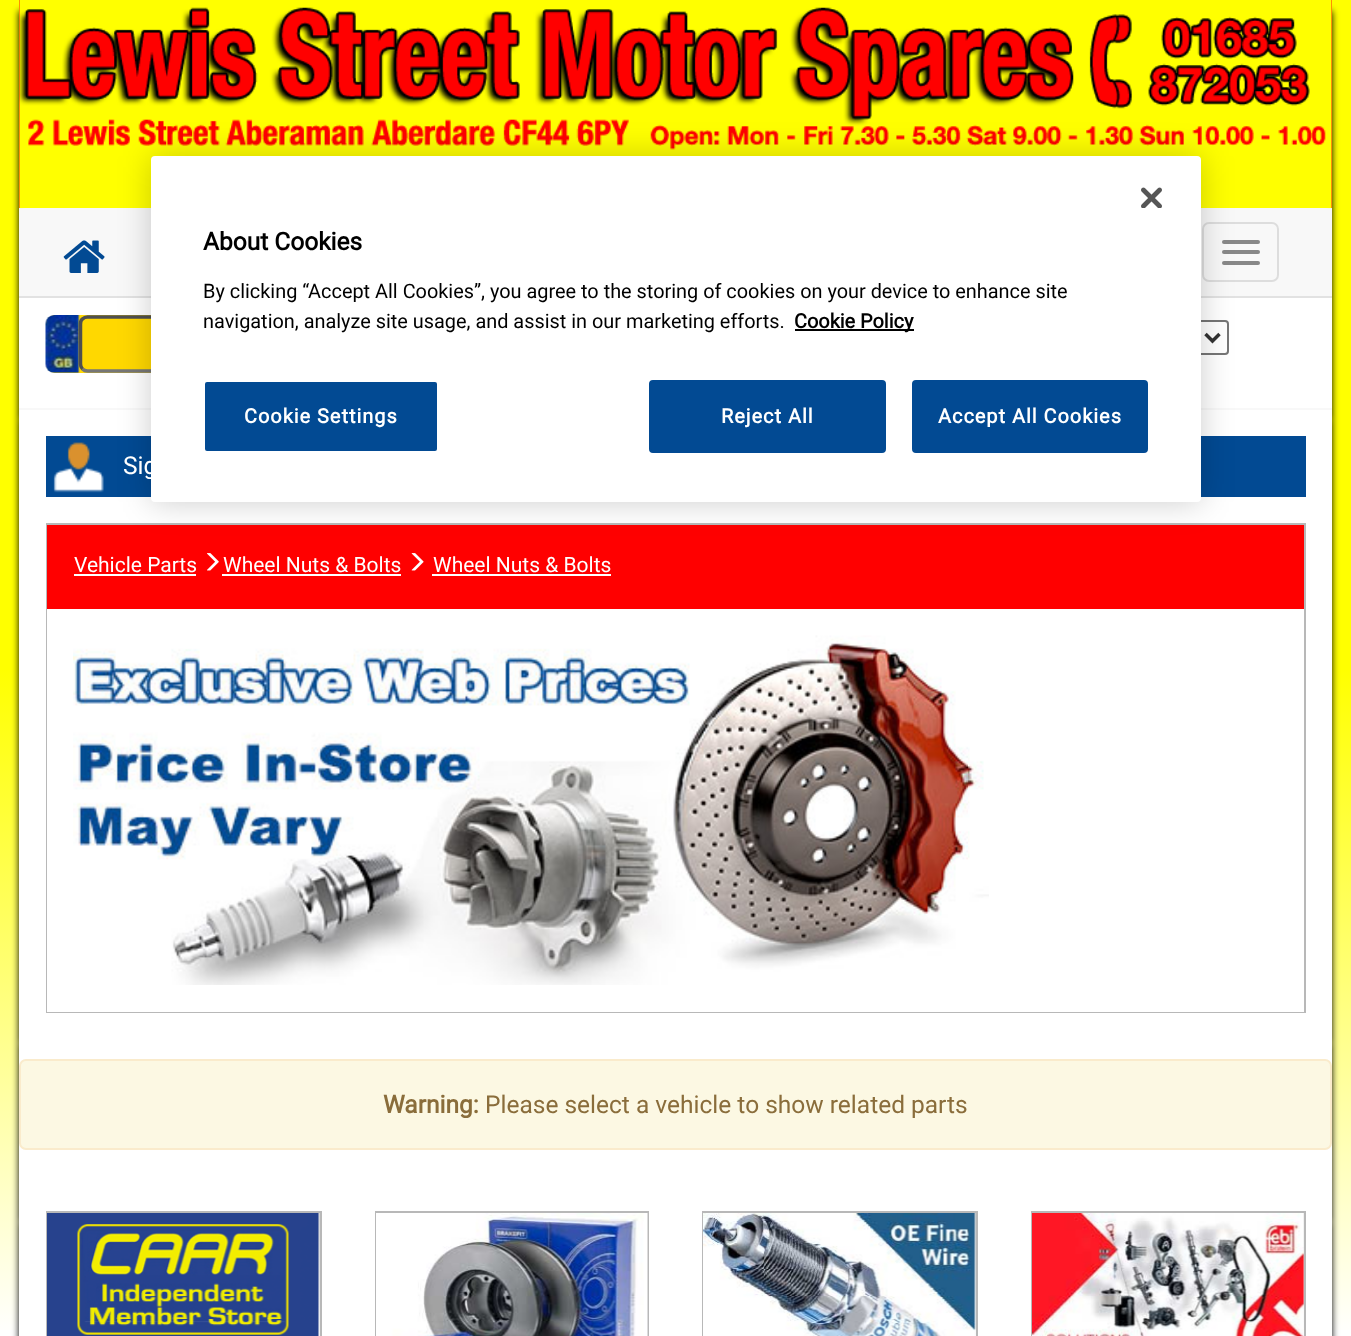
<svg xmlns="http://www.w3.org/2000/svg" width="1351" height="1336">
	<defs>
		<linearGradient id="g1" gradientUnits="userSpaceOnUse" x1="0" y1="669" x2="0" y2="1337"><stop offset="0" stop-color="#FFFF00" /><stop offset="1" stop-color="#FFFFFF" /></linearGradient>
		<linearGradient id="g2" gradientUnits="userSpaceOnUse" x1="184" y1="1213" x2="184" y2="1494"><stop offset="0" stop-color="#DBDBDB" /><stop offset="0.45" stop-color="#FAFAFA" /><stop offset="1" stop-color="#EBEBEB" /></linearGradient>
		<linearGradient id="g3" gradientUnits="userSpaceOnUse" x1="840" y1="1213" x2="840" y2="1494"><stop offset="0" stop-color="#DBDBDB" /><stop offset="0.45" stop-color="#FAFAFA" /><stop offset="1" stop-color="#EBEBEB" /></linearGradient>
		<linearGradient id="g4" gradientUnits="userSpaceOnUse" x1="1168" y1="1213" x2="1168" y2="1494"><stop offset="0" stop-color="#DBDBDB" /><stop offset="0.45" stop-color="#FAFAFA" /><stop offset="1" stop-color="#EBEBEB" /></linearGradient>
	</defs>
	<rect width="100%" height="100%" fill="#FFFFFF" />
	<rect x="0" y="0" width="1351" height="1330" fill="url(#g1)" />
	<rect x="19" y="11" width="1313" height="409" fill="#000000" filter="blur(3.5px)" />
	<rect x="19" y="0" width="1313" height="208" fill="#FF0000" />
	<rect x="19" y="208" width="1313" height="88" fill="#F8F8F8" />
	<image x="19" y="0" width="1313" height="209" href="assets/img2.png" />
	<rect x="19" y="296" width="1313" height="2" fill="#E2E2E2" />
	<rect x="19" y="208" width="1313" height="88" rx="7" fill="#F8F8F8" />
	<image x="63" y="240" width="42" height="33" href="assets/img3.png" />
	<rect x="1203" y="223" width="75" height="58" rx="6" fill="none" stroke="#DDDDDD" stroke-width="2" />
	<rect x="1222" y="240" width="38" height="4" rx="2" fill="#888888" />
	<rect x="1222" y="250" width="38" height="4" rx="2" fill="#888888" />
	<rect x="1222" y="261" width="38" height="4" rx="2" fill="#888888" />
	<rect x="19" y="298" width="1313" height="110" fill="#FFFFFF" />
	<rect x="19" y="408" width="1313" height="2" fill="#F8F8F8" />
	<rect x="46" y="315" width="341" height="58" rx="9" fill="#FFD800" />
	<path d="M383 319C384.5 320 385 322 385 324V364C385 366 384.5 367.5 383 369C381.5 370.5 380 371 378 371H87.5C85.5 371 84 370.5 82.5 369" fill="none" stroke="#767676" stroke-width="3.5" />
	<image x="45" y="315" width="35" height="58" href="assets/img4.png" />
	<path d="M82.5 369C81 367.5 80.5 366 80.5 364V324C80.5 322 81 320 82.5 319C84 317.5 85.5 317 87.5 317H378C380 317 381.5 317.5 383 319" fill="none" stroke="#4F4F4F" stroke-width="3.5" />
	<rect x="1072" y="321" width="156" height="33" rx="3" fill="none" stroke="#767676" stroke-width="2" />
	<path d="M1205.5 334L1212.5 341L1219.5 334" fill="none" stroke="#333333" stroke-width="3.5" />
	<rect x="19" y="420" width="1313" height="623" fill="#000000" filter="blur(3.5px)" />
	<rect x="19" y="410" width="1313" height="623" fill="#FFFFFF" />
	<rect x="46" y="436" width="105" height="61" fill="#024A93" />
	<image x="53" y="442" width="51" height="51" href="assets/img5.png" />
	<rect x="1201" y="436" width="105" height="61" fill="#024A93" />
	<rect x="47" y="524" width="1258" height="488" fill="none" stroke="#B8B8B8" stroke-width="2" />
	<rect x="47" y="525" width="1257" height="84" fill="#FF0000" />
	<rect x="151" y="156" width="1050" height="346" rx="4" fill="#000000" fill-opacity="0.2" filter="blur(16px)" />
	<rect x="151" y="156" width="1050" height="346" rx="4" fill="#FFFFFF" />
	<image x="1141" y="187" width="21" height="21" href="assets/img1.png" />
	<text x="203" y="250" font-family="Roboto" font-size="24.5" font-weight="700" fill="#000000">About Cookies</text>
	<g font-family="Roboto" font-size="19.9" fill="#000000">
		<text x="203" y="298">By clicking “Accept All Cookies”, you agree to the storing of cookies on your device to enhance site</text>
		<text x="203" y="328">navigation, analyze site usage, and assist in our marketing efforts.</text>
	</g>
	<rect x="795" y="329" width="119" height="2" fill="#000000" />
	<text x="794" y="328" font-family="Roboto" font-size="19.9" font-weight="700" fill="#000000">Cookie Policy</text>
	<rect x="204" y="381" width="234" height="71" rx="3" fill="#024A93" stroke="#FFFFFF" stroke-width="2" />
	<text x="244" y="423" font-family="Roboto" font-size="19.9" font-weight="700" letter-spacing="1" fill="#FFFFFF">Cookie Settings</text>
	<rect x="650" y="381" width="235" height="71" rx="3" fill="#024A93" stroke="#024A93" stroke-width="2" />
	<text x="721" y="423" font-family="Roboto" font-size="19.9" font-weight="700" letter-spacing="1" fill="#FFFFFF">Reject All</text>
	<rect x="913" y="381" width="234" height="71" rx="3" fill="#024A93" stroke="#024A93" stroke-width="2" />
	<text x="938" y="423" font-family="Roboto" font-size="19.9" font-weight="700" letter-spacing="1" fill="#FFFFFF">Accept All Cookies</text>
	<text x="123" y="474" font-family="Roboto" font-size="24.5" fill="#FFFFFF">Sig</text>
	<rect x="47" y="609" width="1257" height="403" fill="#FFFFFF" />
	<text x="74" y="572" font-family="Roboto" font-size="21" fill="#FFFFFF">Vehicle Parts</text>
	<rect x="74" y="574" width="122" height="2" fill="#FFFFFF" />
	<image x="207" y="553" width="12" height="18" href="assets/img6.png" />
	<text x="223" y="572" font-family="Roboto" font-size="21" fill="#FFFFFF">Wheel Nuts &amp; Bolts</text>
	<rect x="222" y="574" width="179" height="2" fill="#FFFFFF" />
	<image x="411" y="553" width="13" height="18" href="assets/img7.png" />
	<text x="433" y="572" font-family="Roboto" font-size="21" fill="#FFFFFF">Wheel Nuts &amp; Bolts</text>
	<rect x="432" y="574" width="179" height="2" fill="#FFFFFF" />
	<image x="73" y="635" width="916" height="350" href="assets/img8.png" />
	<rect x="19" y="1043" width="1313" height="179" fill="#000000" filter="blur(3.5px)" />
	<rect x="19" y="1033" width="1313" height="178" fill="#FFFFFF" />
	<rect x="20" y="1060" width="1311" height="89" rx="6" fill="#FCF8E3" stroke="#FAEBCC" stroke-width="2" />
	<text x="383" y="1113" font-family="Roboto" font-size="24.5" font-weight="700" fill="#8A6D3B">Warning:</text>
	<text x="485" y="1113" font-family="Roboto" font-size="24.5" fill="#8A6D3B">Please select a vehicle to show related parts</text>
	<rect x="19" y="1222" width="1313" height="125" fill="#000000" filter="blur(3.5px)" />
	<rect x="19" y="1211" width="1313" height="125" fill="#FFFFFF" />
	<rect x="318" y="1213" width="2" height="123" fill="url(#g2)" />
	<rect x="47" y="1212" width="274" height="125" fill="none" stroke="#B8B8B8" stroke-width="2" />
	<image x="47" y="1213" width="273" height="123" href="assets/img9.png" />
	<rect x="376" y="1212" width="272" height="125" fill="none" stroke="#B8B8B8" stroke-width="2" />
	<image x="376" y="1213" width="272" height="123" href="assets/img10.png" />
	<rect x="974" y="1213" width="2" height="123" fill="url(#g3)" />
	<rect x="703" y="1212" width="274" height="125" fill="none" stroke="#B8B8B8" stroke-width="2" />
	<image x="703" y="1213" width="273" height="123" href="assets/img11.png" />
	<rect x="1303" y="1213" width="1" height="123" fill="url(#g4)" />
	<rect x="1032" y="1212" width="273" height="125" fill="none" stroke="#B8B8B8" stroke-width="2" />
	<image x="1032" y="1213" width="272" height="123" href="assets/img12.png" />
</svg>
